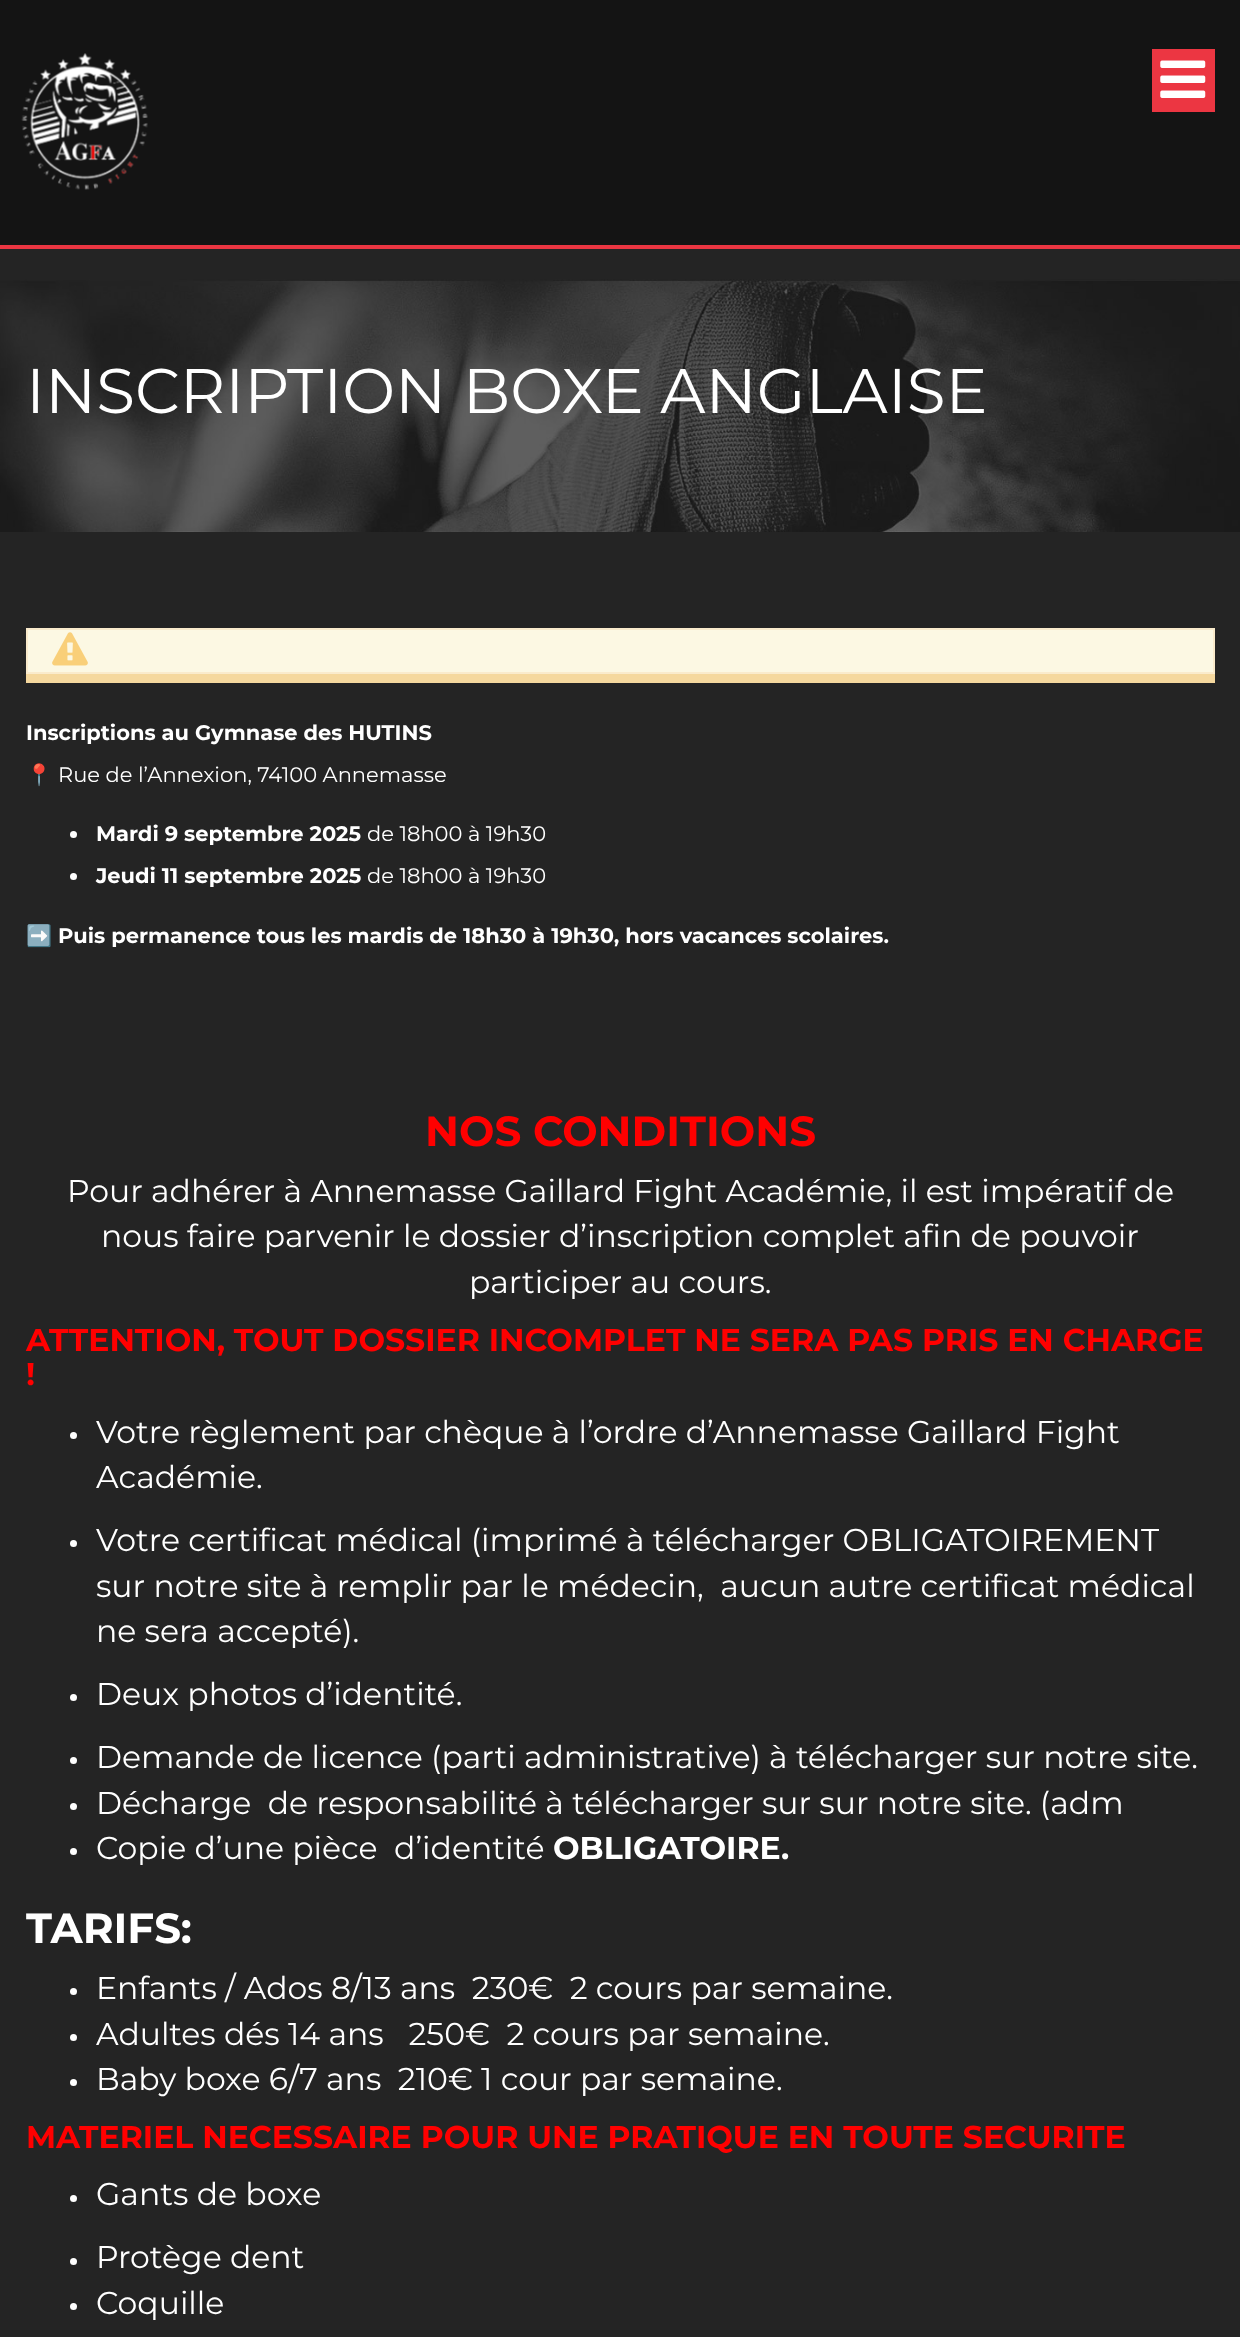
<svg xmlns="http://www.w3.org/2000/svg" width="1240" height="2337">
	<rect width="100%" height="100%" fill="#242424" />
	<rect x="0" y="0" width="1240" height="245" fill="#141414" />
	<rect x="0" y="245" width="1240" height="4" fill="#EC3642" />
	<image x="21" y="53" width="127" height="137" href="assets/img1.png" />
	<rect x="1152" y="49" width="63" height="63" fill="#EC3642" />
	<image x="1160" y="60" width="46" height="38" href="assets/img2.png" />
	<image x="0" y="279" width="1240" height="253" href="assets/img3.png" />
	<text x="26" y="413" font-family="Montserrat" font-size="63" fill="#FFFFFF">INSCRIPTION BOXE ANGLAISE</text>
	<path d="M26 637V683H1215V637H1214V674H26Z" fill="#F5D89E" />
	<rect x="27" y="629" width="1187" height="44" fill="#FCF8E3" stroke="#FAEBCC" stroke-width="2" />
	<image x="52" y="632" width="36" height="34" href="assets/img4.png" />
	<text x="26" y="740" font-family="Montserrat" font-size="21" font-weight="700" fill="#FFFFFF">Inscriptions au Gymnase des HUTINS</text>
	<text x="26" y="782" font-family="Noto Color Emoji" font-size="21" fill="#FFFFFF">📍</text>
	<text x="58" y="782" font-family="Montserrat" font-size="21" fill="#FFFFFF">Rue de l’Annexion, 74100 Annemasse</text>
	<circle cx="73.5" cy="834.5" r="3.5" fill="#FFFFFF" />
	<text x="96" y="841" font-family="Montserrat" font-size="21" font-weight="700" fill="#FFFFFF">Mardi 9 septembre 2025</text>
	<text x="367" y="841" font-family="Montserrat" font-size="21" fill="#FFFFFF">de 18h00 à 19h30</text>
	<circle cx="73.5" cy="876.5" r="3.5" fill="#FFFFFF" />
	<text x="96" y="883" font-family="Montserrat" font-size="21" font-weight="700" fill="#FFFFFF">Jeudi 11 septembre 2025</text>
	<text x="367" y="883" font-family="Montserrat" font-size="21" fill="#FFFFFF">de 18h00 à 19h30</text>
	<text x="26" y="943" font-family="Noto Color Emoji" font-size="21" fill="#FFFFFF">➡️</text>
	<text x="58" y="943" font-family="Montserrat" font-size="21" font-weight="700" fill="#FFFFFF">Puis permanence tous les mardis de 18h30 à 19h30, hors vacances scolaires.</text>
	<text x="425" y="1146" font-family="Montserrat" font-size="42" font-weight="700" fill="#FF0000">NOS CONDITIONS</text>
	<g font-family="Montserrat" font-size="31.5" fill="#FFFFFF">
		<text x="67" y="1202">Pour adhérer à Annemasse Gaillard Fight Académie, il est impératif de</text>
		<text x="101" y="1247">nous faire parvenir le dossier d’inscription complet afin de pouvoir</text>
		<text x="469" y="1293">participer au cours.</text>
	</g>
	<g font-family="Montserrat" font-size="31.5" font-weight="700" fill="#FF0000">
		<text x="26" y="1351">ATTENTION, TOUT DOSSIER INCOMPLET NE SERA PAS PRIS EN CHARGE</text>
		<text x="26" y="1385">!</text>
	</g>
	<circle cx="73.5" cy="1435.5" r="3.5" fill="#FFFFFF" />
	<g font-family="Montserrat" font-size="31.5" fill="#FFFFFF">
		<text x="96" y="1443">Votre règlement par chèque à l’ordre d’Annemasse Gaillard Fight</text>
		<text x="96" y="1488">Académie.</text>
	</g>
	<circle cx="73.5" cy="1543.5" r="3.5" fill="#FFFFFF" />
	<g font-family="Montserrat" font-size="31.5" fill="#FFFFFF">
		<text x="96" y="1551">Votre certificat médical (imprimé à télécharger OBLIGATOIREMENT</text>
		<text x="96" y="1597" xml:space="preserve">sur notre site à remplir par le médecin,  aucun autre certificat médical</text>
		<text x="96" y="1642">ne sera accepté).</text>
	</g>
	<circle cx="73.5" cy="1697.5" r="3.5" fill="#FFFFFF" />
	<text x="96" y="1705" font-family="Montserrat" font-size="31.5" fill="#FFFFFF">Deux photos d’identité.</text>
	<circle cx="73.5" cy="1760.5" r="3.5" fill="#FFFFFF" />
	<text x="96" y="1768" font-family="Montserrat" font-size="31.5" fill="#FFFFFF">Demande de licence (parti administrative) à télécharger sur notre site.</text>
	<circle cx="73.5" cy="1806.5" r="3.5" fill="#FFFFFF" />
	<text x="96" y="1814" font-family="Montserrat" font-size="31.5" fill="#FFFFFF" xml:space="preserve">Décharge  de responsabilité à télécharger sur sur notre site. (adm</text>
	<circle cx="73.5" cy="1851.5" r="3.5" fill="#FFFFFF" />
	<text x="96" y="1859" font-family="Montserrat" font-size="31.5" fill="#FFFFFF" xml:space="preserve">Copie d’une pièce  d’identité</text>
	<text x="553" y="1859" font-family="Montserrat" font-size="31.5" font-weight="700" fill="#FFFFFF">OBLIGATOIRE.</text>
	<text x="26" y="1943" font-family="Montserrat" font-size="42" font-weight="700" fill="#FFFFFF">TARIFS:</text>
	<circle cx="73.5" cy="1991.5" r="3.5" fill="#FFFFFF" />
	<text x="96" y="1999" font-family="Montserrat" font-size="31.5" fill="#FFFFFF" xml:space="preserve">Enfants / Ados 8/13 ans  230€  2 cours par semaine.</text>
	<circle cx="73.5" cy="2037.5" r="3.5" fill="#FFFFFF" />
	<text x="96" y="2045" font-family="Montserrat" font-size="31.5" fill="#FFFFFF" xml:space="preserve">Adultes dés 14 ans   250€  2 cours par semaine.</text>
	<circle cx="73.5" cy="2082.5" r="3.5" fill="#FFFFFF" />
	<text x="96" y="2090" font-family="Montserrat" font-size="31.5" fill="#FFFFFF" xml:space="preserve">Baby boxe 6/7 ans  210€ 1 cour par semaine.</text>
	<text x="26" y="2148" font-family="Montserrat" font-size="31.5" font-weight="700" fill="#FF0000">MATERIEL NECESSAIRE POUR UNE PRATIQUE EN TOUTE SECURITE</text>
	<circle cx="73.5" cy="2198.5" r="3.5" fill="#FFFFFF" />
	<text x="96" y="2205" font-family="Montserrat" font-size="31.5" fill="#FFFFFF">Gants de boxe</text>
	<circle cx="73.5" cy="2261.5" r="3.5" fill="#FFFFFF" />
	<text x="96" y="2268" font-family="Montserrat" font-size="31.5" fill="#FFFFFF">Protège dent</text>
	<circle cx="73.5" cy="2306.5" r="3.5" fill="#FFFFFF" />
	<text x="96" y="2314" font-family="Montserrat" font-size="31.5" fill="#FFFFFF">Coquille</text>
</svg>
